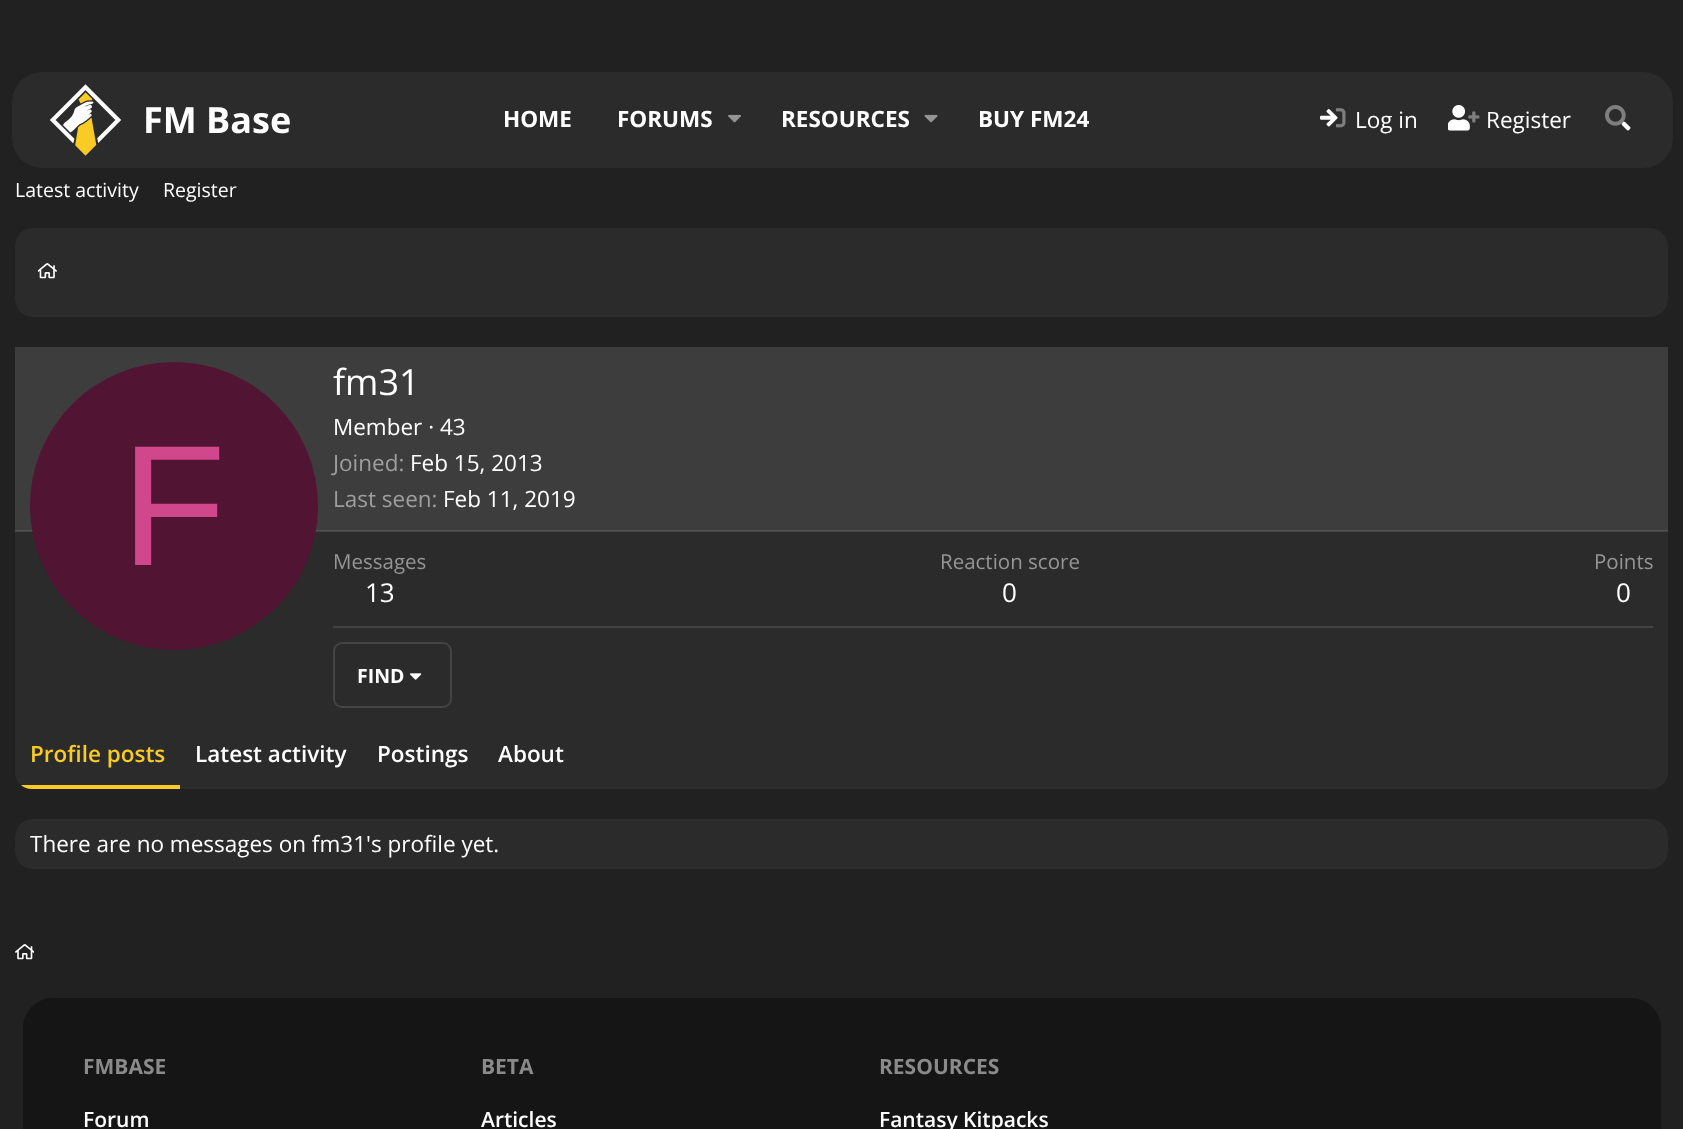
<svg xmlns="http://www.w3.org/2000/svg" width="1683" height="1129">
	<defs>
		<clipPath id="clip1"><path d="M15 723H1668V772C1668 781.5 1660.5 789 1651 789H32C22.5 789 15 781.5 15 772Z" /></clipPath>
	</defs>
	<rect width="100%" height="100%" fill="#212121" />
	<rect x="12" y="72" width="1661" height="96" rx="30" fill="#2B2B2B" />
	<image x="50" y="84" width="72" height="72" href="assets/img1.png" />
	<text x="143" y="133" font-family="Open Sans" font-size="36" font-weight="700" fill="#FFFFFF">FM Base</text>
	<g font-family="Open Sans" font-size="22.5" font-weight="700" fill="#FFFFFF">
		<text x="503" y="127">HOME</text>
		<text x="617" y="127">FORUMS</text>
	</g>
	<image x="728" y="114" width="13" height="9" href="assets/img2.png" />
	<text x="781" y="127" font-family="Open Sans" font-size="22.5" font-weight="700" fill="#FFFFFF">RESOURCES</text>
	<image x="924" y="114" width="14" height="9" href="assets/img3.png" />
	<text x="978" y="127" font-family="Open Sans" font-size="22.5" font-weight="700" fill="#FFFFFF">BUY FM24</text>
	<image x="1320" y="108" width="26" height="20" href="assets/img4.png" />
	<text x="1355" y="128" font-family="Open Sans" font-size="22.5" fill="#FFFFFF">Log in</text>
	<image x="1448" y="105" width="32" height="26" href="assets/img5.png" />
	<text x="1486" y="128" font-family="Open Sans" font-size="22.5" fill="#FFFFFF">Register</text>
	<image x="1605" y="105" width="26" height="26" href="assets/img6.png" />
	<g font-family="Open Sans" font-size="19.5" fill="#FFFFFF">
		<text x="15" y="197">Latest activity</text>
		<text x="163" y="197">Register</text>
	</g>
	<rect x="15" y="228" width="1653" height="89" rx="18" fill="#2B2B2B" />
	<image x="37" y="263" width="20" height="16" href="assets/img7.png" />
	<rect x="15" y="347" width="1653" height="442" rx="18" fill="#2B2B2B" />
	<rect x="15" y="531" width="1653" height="1" fill="#434343" />
	<rect x="15" y="347" width="1653" height="183" fill="#3D3D3D" />
	<rect x="15" y="530" width="1653" height="1" fill="#535353" />
	<circle cx="174" cy="506" r="144" fill="#521433" />
	<text x="121" y="565" font-family="Liberation Sans" font-size="172" fill="#D1478C">F</text>
	<text x="333" y="395" font-family="Open Sans" font-size="36" fill="#FFFFFF">fm31</text>
	<text x="333" y="435" font-family="Open Sans" font-size="22.5" fill="#FFFFFF">Member · 43</text>
	<text x="333" y="471" font-family="Open Sans" font-size="22.5" fill="#9E9E9E">Joined:</text>
	<text x="410" y="471" font-family="Open Sans" font-size="22.5" fill="#FFFFFF">Feb 15, 2013</text>
	<text x="333" y="507" font-family="Open Sans" font-size="22.5" fill="#9E9E9E">Last seen:</text>
	<text x="443" y="507" font-family="Open Sans" font-size="22.5" fill="#FFFFFF">Feb 11, 2019</text>
	<text x="333" y="569" font-family="Open Sans" font-size="20.5" fill="#959595">Messages</text>
	<text x="365" y="602" font-family="Open Sans" font-size="26" fill="#FFFFFF">13</text>
	<text x="940" y="569" font-family="Open Sans" font-size="20.5" fill="#959595">Reaction score</text>
	<text x="1002" y="602" font-family="Open Sans" font-size="26" fill="#FFFFFF">0</text>
	<text x="1594" y="569" font-family="Open Sans" font-size="20.5" fill="#959595">Points</text>
	<text x="1616" y="602" font-family="Open Sans" font-size="26" fill="#FFFFFF">0</text>
	<rect x="333" y="626" width="1320" height="2" fill="#434343" />
	<rect x="334" y="643" width="117" height="64" rx="8" fill="none" stroke="#444444" stroke-width="2" />
	<text x="357" y="683" font-family="Open Sans" font-size="19.5" font-weight="700" fill="#FFFFFF">FIND</text>
	<image x="410" y="673" width="12" height="7" href="assets/img8.png" />
	<path d="M15 723H1668V772C1668 781.5 1660.5 789 1651 789H32C22.5 789 15 781.5 15 772Z" fill="#2B2B2B" />
	<g clip-path="url(#clip1)">
		<rect x="15" y="785" width="165" height="4" fill="#F9CB24" />
	</g>
	<text x="30" y="762" font-family="Open Sans" font-size="22.5" font-weight="600" fill="#F9CB24">Profile posts</text>
	<g font-family="Open Sans" font-size="22.5" font-weight="600" fill="#FFFFFF">
		<text x="195" y="762">Latest activity</text>
		<text x="377" y="762">Postings</text>
		<text x="498" y="762">About</text>
	</g>
	<rect x="15" y="819" width="1653" height="50" rx="18" fill="#2B2B2B" />
	<text x="30" y="852" font-family="Open Sans" font-size="22.5" fill="#FFFFFF">There are no messages on fm31's profile yet.</text>
	<image x="15" y="944" width="20" height="16" href="assets/img9.png" />
	<rect x="23" y="998" width="1638" height="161" rx="30" fill="#151515" />
	<text x="83" y="1074" font-family="Open Sans" font-size="21" font-weight="700" fill="#8A8A8A">FMBASE</text>
	<text x="83" y="1127" font-family="Open Sans" font-size="21" font-weight="600" fill="#FFFFFF">Forum</text>
	<text x="481" y="1074" font-family="Open Sans" font-size="21" font-weight="700" fill="#8A8A8A">BETA</text>
	<text x="481" y="1127" font-family="Open Sans" font-size="21" font-weight="600" fill="#FFFFFF">Articles</text>
	<text x="879" y="1074" font-family="Open Sans" font-size="21" font-weight="700" fill="#8A8A8A">RESOURCES</text>
	<text x="879" y="1127" font-family="Open Sans" font-size="21" font-weight="600" fill="#FFFFFF">Fantasy Kitpacks</text>
</svg>
